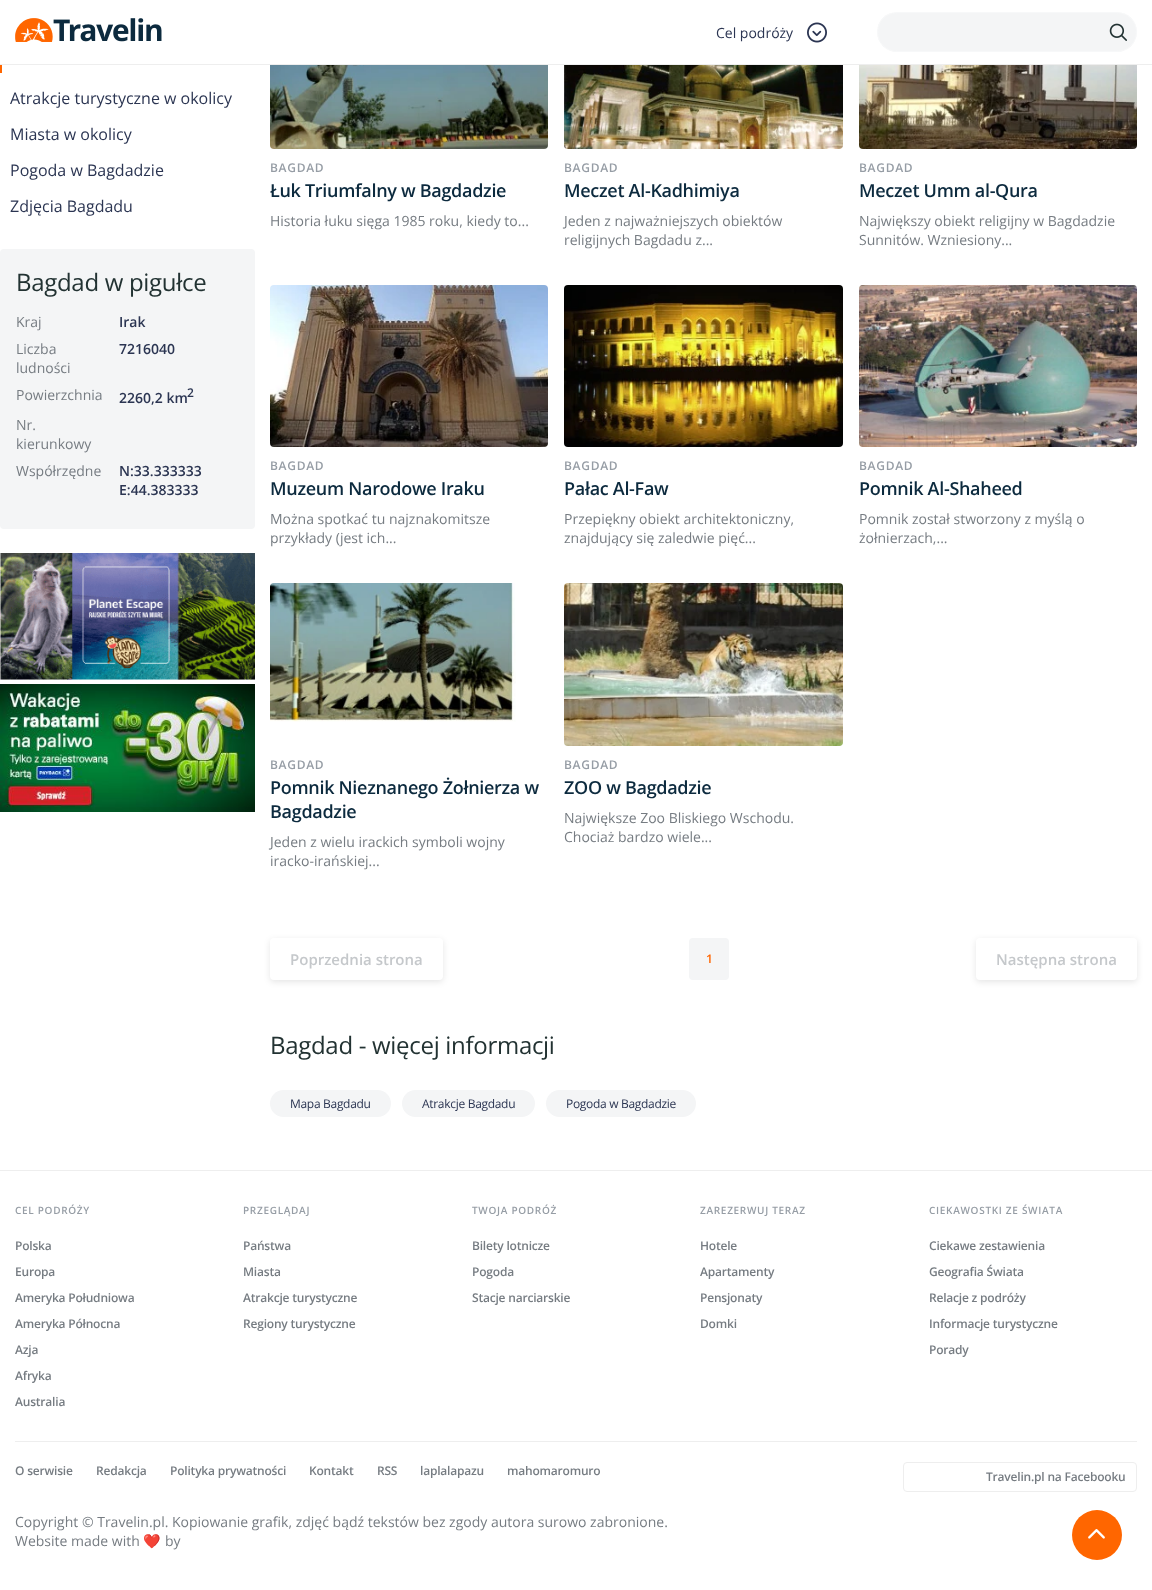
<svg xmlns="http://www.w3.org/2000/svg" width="1152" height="1590">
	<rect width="100%" height="100%" fill="#FFFFFF" />
	<rect x="0" y="64" width="1152" height="1" fill="#EEEEEE" />
	<image x="15" y="18" width="147" height="24" href="assets/img1.png" />
	<text x="716" y="38" font-family="Open Sans" font-size="14" fill="#2B3552">Cel podróży</text>
	<image x="807" y="22" width="20" height="21" href="assets/img2.png" />
	<rect x="877" y="12" width="260" height="40" rx="20" fill="#F4F5F6" />
	<rect x="877.5" y="12.5" width="259" height="39" rx="19.5" fill="none" stroke="#FFFFFF" stroke-opacity="0.3" />
	<image x="1109" y="23" width="18" height="18" href="assets/img3.png" />
	<rect x="0" y="65" width="2" height="8" fill="#FF6600" />
	<g font-family="Open Sans" font-size="16" fill="#2B3552">
		<text x="10" y="104">Atrakcje turystyczne w okolicy</text>
		<text x="10" y="140">Miasta w okolicy</text>
		<text x="10" y="176">Pogoda w Bagdadzie</text>
		<text x="10" y="212">Zdjęcia Bagdadu</text>
	</g>
	<rect x="0" y="249" width="255" height="280" rx="4" fill="#F4F5F6" />
	<text x="16" y="291" font-family="Open Sans" font-size="24" letter-spacing="-0.3" fill="#223232">Bagdad w pigułce</text>
	<text x="16" y="327" font-family="Open Sans" font-size="14" fill="#767C82">Kraj</text>
	<text x="119" y="327" font-family="Open Sans" font-size="14" font-weight="600" fill="#2B3552">Irak</text>
	<g font-family="Open Sans" font-size="14" fill="#767C82">
		<text x="16" y="354">Liczba</text>
		<text x="16" y="373">ludności</text>
	</g>
	<text x="119" y="354" font-family="Open Sans" font-size="14" font-weight="600" fill="#2B3552">7216040</text>
	<text x="16" y="400" font-family="Open Sans" font-size="14" fill="#767C82">Powierzchnia</text>
	<text x="119" y="403" font-family="Open Sans" font-size="14" font-weight="600" fill="#2B3552">2260,2 km</text>
	<text x="187" y="397" font-family="Open Sans" font-size="12" font-weight="600" fill="#2B3552">2</text>
	<g font-family="Open Sans" font-size="14" fill="#767C82">
		<text x="16" y="430">Nr.</text>
		<text x="16" y="449">kierunkowy</text>
		<text x="16" y="476">Współrzędne</text>
	</g>
	<g font-family="Open Sans" font-size="14" font-weight="600" fill="#2B3552">
		<text x="119" y="476">N:33.333333</text>
		<text x="119" y="495">E:44.383333</text>
	</g>
	<image x="0" y="553" width="255" height="127" href="assets/img4.png" />
	<image x="0" y="684" width="255" height="128" href="assets/img5.png" />
	<image x="270" y="65" width="278" height="84" href="assets/img6.png" />
	<text x="270" y="172" font-family="Open Sans" font-size="12" font-weight="600" letter-spacing="0.7" fill="#969DA5">BAGDAD</text>
	<text x="270" y="197" font-family="Open Sans" font-size="18" font-weight="600" letter-spacing="-0.3" fill="#0C2A3E">Łuk Triumfalny w Bagdadzie</text>
	<text x="270" y="226" font-family="Open Sans" font-size="14" fill="#767C82">Historia łuku sięga 1985 roku, kiedy to...</text>
	<image x="564" y="65" width="279" height="84" href="assets/img7.png" />
	<text x="564" y="172" font-family="Open Sans" font-size="12" font-weight="600" letter-spacing="0.7" fill="#969DA5">BAGDAD</text>
	<text x="564" y="197" font-family="Open Sans" font-size="18" font-weight="600" letter-spacing="-0.3" fill="#0C2A3E">Meczet Al-Kadhimiya</text>
	<g font-family="Open Sans" font-size="14" fill="#767C82">
		<text x="564" y="226">Jeden z najważniejszych obiektów</text>
		<text x="564" y="245">religijnych Bagdadu z...</text>
	</g>
	<image x="859" y="65" width="278" height="84" href="assets/img8.png" />
	<text x="859" y="172" font-family="Open Sans" font-size="12" font-weight="600" letter-spacing="0.7" fill="#969DA5">BAGDAD</text>
	<text x="859" y="197" font-family="Open Sans" font-size="18" font-weight="600" letter-spacing="-0.3" fill="#0C2A3E">Meczet Umm al-Qura</text>
	<g font-family="Open Sans" font-size="14" fill="#767C82">
		<text x="859" y="226">Największy obiekt religijny w Bagdadzie</text>
		<text x="859" y="245">Sunnitów. Wzniesiony...</text>
	</g>
	<image x="270" y="285" width="278" height="162" href="assets/img9.png" />
	<text x="270" y="470" font-family="Open Sans" font-size="12" font-weight="600" letter-spacing="0.7" fill="#969DA5">BAGDAD</text>
	<text x="270" y="495" font-family="Open Sans" font-size="18" font-weight="600" letter-spacing="-0.3" fill="#0C2A3E">Muzeum Narodowe Iraku</text>
	<g font-family="Open Sans" font-size="14" fill="#767C82">
		<text x="270" y="524">Można spotkać tu najznakomitsze</text>
		<text x="270" y="543">przykłady (jest ich...</text>
	</g>
	<image x="564" y="285" width="279" height="162" href="assets/img10.png" />
	<text x="564" y="470" font-family="Open Sans" font-size="12" font-weight="600" letter-spacing="0.7" fill="#969DA5">BAGDAD</text>
	<text x="564" y="495" font-family="Open Sans" font-size="18" font-weight="600" letter-spacing="-0.3" fill="#0C2A3E">Pałac Al-Faw</text>
	<g font-family="Open Sans" font-size="14" fill="#767C82">
		<text x="564" y="524">Przepiękny obiekt architektoniczny,</text>
		<text x="564" y="543">znajdujący się zaledwie pięć...</text>
	</g>
	<image x="859" y="285" width="278" height="162" href="assets/img11.png" />
	<text x="859" y="470" font-family="Open Sans" font-size="12" font-weight="600" letter-spacing="0.7" fill="#969DA5">BAGDAD</text>
	<text x="859" y="495" font-family="Open Sans" font-size="18" font-weight="600" letter-spacing="-0.3" fill="#0C2A3E">Pomnik Al-Shaheed</text>
	<g font-family="Open Sans" font-size="14" fill="#767C82">
		<text x="859" y="524">Pomnik został stworzony z myślą o</text>
		<text x="859" y="543">żołnierzach,...</text>
	</g>
	<image x="270" y="583" width="246" height="139" href="assets/img12.png" />
	<text x="270" y="769" font-family="Open Sans" font-size="12" font-weight="600" letter-spacing="0.7" fill="#969DA5">BAGDAD</text>
	<g font-family="Open Sans" font-size="18" font-weight="600" letter-spacing="-0.3" fill="#0C2A3E">
		<text x="270" y="794">Pomnik Nieznanego Żołnierza w</text>
		<text x="270" y="818">Bagdadzie</text>
	</g>
	<g font-family="Open Sans" font-size="14" fill="#767C82">
		<text x="270" y="847">Jeden z wielu irackich symboli wojny</text>
		<text x="270" y="866">iracko-irańskiej...</text>
	</g>
	<image x="564" y="583" width="279" height="163" href="assets/img13.png" />
	<text x="564" y="769" font-family="Open Sans" font-size="12" font-weight="600" letter-spacing="0.7" fill="#969DA5">BAGDAD</text>
	<text x="564" y="794" font-family="Open Sans" font-size="18" font-weight="600" letter-spacing="-0.3" fill="#0C2A3E">ZOO w Bagdadzie</text>
	<g font-family="Open Sans" font-size="14" fill="#767C82">
		<text x="564" y="823">Największe Zoo Bliskiego Wschodu.</text>
		<text x="564" y="842">Chociaż bardzo wiele...</text>
	</g>
	<rect x="270" y="940" width="173" height="42" rx="4" fill="#000000" fill-opacity="0.1" filter="blur(3px)" />
	<rect x="270" y="938" width="173" height="42" rx="4" fill="#FFFFFF" />
	<text x="290" y="965" font-family="Open Sans" font-size="15" font-weight="600" fill="#C5C8CB">Poprzednia strona</text>
	<rect x="689" y="938" width="40" height="42" rx="4" fill="#F4F5F6" />
	<text x="706" y="963" font-family="Open Sans" font-size="12" font-weight="600" fill="#FF6600">1</text>
	<rect x="976" y="940" width="161" height="42" rx="4" fill="#000000" fill-opacity="0.1" filter="blur(3px)" />
	<rect x="976" y="938" width="161" height="42" rx="4" fill="#FFFFFF" />
	<text x="996" y="965" font-family="Open Sans" font-size="15" font-weight="600" fill="#C5C8CB">Następna strona</text>
	<text x="270" y="1054" font-family="Open Sans" font-size="24" letter-spacing="-0.3" fill="#223232">Bagdad - więcej informacji</text>
	<rect x="270" y="1090" width="121" height="27" rx="13.5" fill="#F4F5F6" />
	<text x="290" y="1108" font-family="Open Sans" font-size="12" letter-spacing="-0.3" fill="#2B3552">Mapa Bagdadu</text>
	<rect x="402" y="1090" width="133" height="27" rx="13.5" fill="#F4F5F6" />
	<text x="422" y="1108" font-family="Open Sans" font-size="12" letter-spacing="-0.3" fill="#2B3552">Atrakcje Bagdadu</text>
	<rect x="546" y="1090" width="150" height="27" rx="13.5" fill="#F4F5F6" />
	<text x="566" y="1108" font-family="Open Sans" font-size="12" letter-spacing="-0.3" fill="#2B3552">Pogoda w Bagdadzie</text>
	<rect x="0" y="1170" width="1152" height="1" fill="#EEEEEE" />
	<text x="15" y="1214" font-family="Open Sans" font-size="10" font-weight="600" letter-spacing="0.7" fill="#969DA5">CEL PODRÓŻY</text>
	<g font-family="Open Sans" font-size="12" font-weight="600" letter-spacing="-0.2" fill="#767C82">
		<text x="15" y="1250">Polska</text>
		<text x="15" y="1276">Europa</text>
		<text x="15" y="1302">Ameryka Południowa</text>
		<text x="15" y="1328">Ameryka Północna</text>
		<text x="15" y="1354">Azja</text>
		<text x="15" y="1380">Afryka</text>
		<text x="15" y="1406">Australia</text>
	</g>
	<text x="243" y="1214" font-family="Open Sans" font-size="10" font-weight="600" letter-spacing="0.7" fill="#969DA5">PRZEGLĄDAJ</text>
	<g font-family="Open Sans" font-size="12" font-weight="600" letter-spacing="-0.2" fill="#767C82">
		<text x="243" y="1250">Państwa</text>
		<text x="243" y="1276">Miasta</text>
		<text x="243" y="1302">Atrakcje turystyczne</text>
		<text x="243" y="1328">Regiony turystyczne</text>
	</g>
	<text x="472" y="1214" font-family="Open Sans" font-size="10" font-weight="600" letter-spacing="0.7" fill="#969DA5">TWOJA PODRÓŻ</text>
	<g font-family="Open Sans" font-size="12" font-weight="600" letter-spacing="-0.2" fill="#767C82">
		<text x="472" y="1250">Bilety lotnicze</text>
		<text x="472" y="1276">Pogoda</text>
		<text x="472" y="1302">Stacje narciarskie</text>
	</g>
	<text x="700" y="1214" font-family="Open Sans" font-size="10" font-weight="600" letter-spacing="0.7" fill="#969DA5">ZAREZERWUJ TERAZ</text>
	<g font-family="Open Sans" font-size="12" font-weight="600" letter-spacing="-0.2" fill="#767C82">
		<text x="700" y="1250">Hotele</text>
		<text x="700" y="1276">Apartamenty</text>
		<text x="700" y="1302">Pensjonaty</text>
		<text x="700" y="1328">Domki</text>
	</g>
	<text x="929" y="1214" font-family="Open Sans" font-size="10" font-weight="600" letter-spacing="0.7" fill="#969DA5">CIEKAWOSTKI ZE ŚWIATA</text>
	<g font-family="Open Sans" font-size="12" font-weight="600" letter-spacing="-0.2" fill="#767C82">
		<text x="929" y="1250">Ciekawe zestawienia</text>
		<text x="929" y="1276">Geografia Świata</text>
		<text x="929" y="1302">Relacje z podróży</text>
		<text x="929" y="1328">Informacje turystyczne</text>
		<text x="929" y="1354">Porady</text>
	</g>
	<rect x="15" y="1441" width="1122" height="1" fill="#EEEEEE" />
	<g font-family="Open Sans" font-size="12" font-weight="600" letter-spacing="-0.2" fill="#767C82">
		<text x="15" y="1475">O serwisie</text>
		<text x="96" y="1475">Redakcja</text>
		<text x="170" y="1475">Polityka prywatności</text>
		<text x="309" y="1475">Kontakt</text>
		<text x="377" y="1475">RSS</text>
		<text x="420" y="1475">laplalapazu</text>
		<text x="507" y="1475">mahomaromuro</text>
	</g>
	<rect x="903.5" y="1462.5" width="233" height="29" rx="3.5" fill="none" stroke="#EEEEEE" />
	<text x="986" y="1481" font-family="Open Sans" font-size="12" font-weight="600" letter-spacing="-0.2" fill="#767C82">Travelin.pl na Facebooku</text>
	<g font-family="Open Sans" font-size="14" fill="#767C82">
		<text x="15" y="1527">Copyright © Travelin.pl. Kopiowanie grafik, zdjęć bądź tekstów bez zgody autora surowo zabronione.</text>
		<text x="15" y="1546">Website made with</text>
	</g>
	<text x="143" y="1546" font-family="Noto Color Emoji" font-size="14" fill="#767C82">❤️</text>
	<text x="165" y="1546" font-family="Open Sans" font-size="14" fill="#767C82">by</text>
	<circle cx="1097" cy="1535" r="25" fill="#FF6600" />
	<image x="1088" y="1529" width="17" height="10" href="assets/img14.png" />
</svg>
